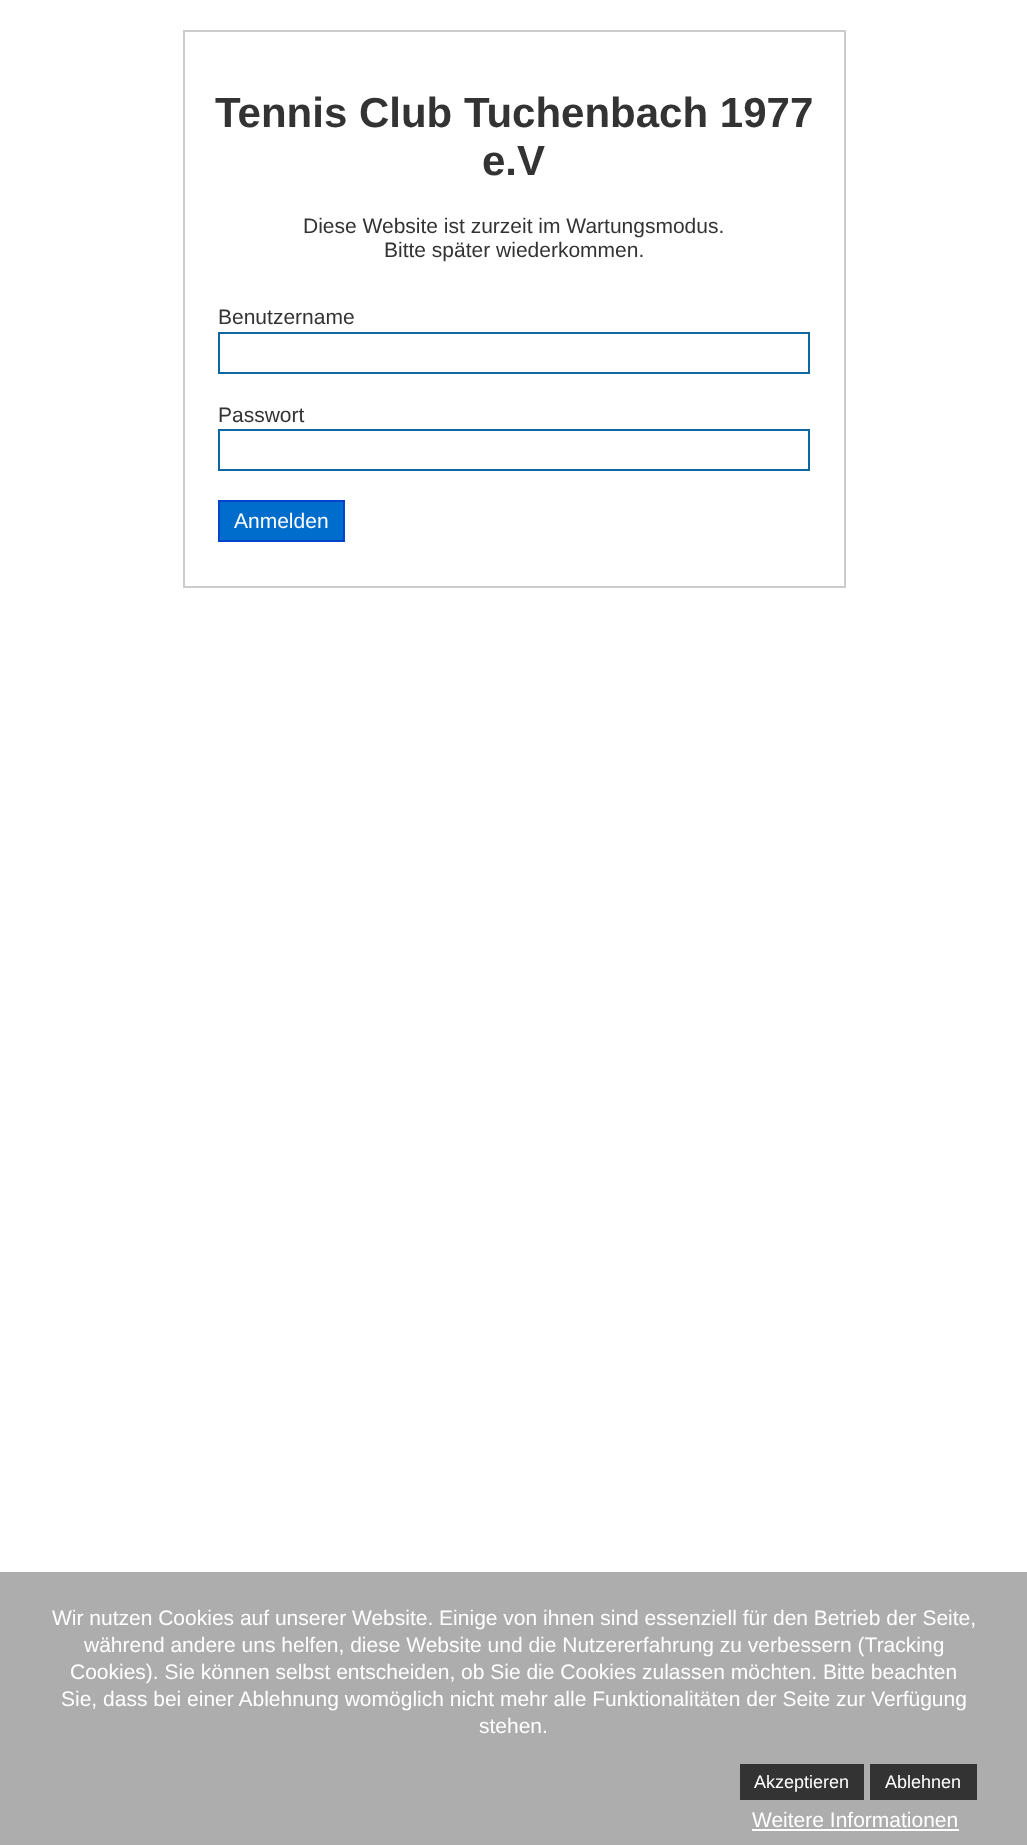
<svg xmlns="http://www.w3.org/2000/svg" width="1027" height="1845">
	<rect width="100%" height="100%" fill="#FFFFFF" />
	<rect x="184" y="31" width="661" height="556" fill="none" stroke="#CCCCCC" stroke-width="2" />
	<g font-family="Liberation Sans" font-size="42" font-weight="700" fill="#333333">
		<text x="215" y="127">Tennis Club Tuchenbach 1977</text>
		<text x="482" y="175">e.V</text>
	</g>
	<g font-family="Liberation Sans" font-size="21" fill="#333333">
		<text x="303" y="233">Diese Website ist zurzeit im Wartungsmodus.</text>
		<text x="384" y="257">Bitte später wiederkommen.</text>
		<text x="218" y="324">Benutzername</text>
	</g>
	<rect x="219" y="333" width="590" height="40" fill="none" stroke="#0E67A1" stroke-width="2" />
	<text x="218" y="422" font-family="Liberation Sans" font-size="21" fill="#333333">Passwort</text>
	<rect x="219" y="430" width="590" height="40" fill="none" stroke="#0E67A1" stroke-width="2" />
	<rect x="219" y="501" width="125" height="40" fill="#006DCC" stroke="#0044CC" stroke-width="2" />
	<text x="234" y="528" font-family="Liberation Sans" font-size="21" fill="#FFFFFF">Anmelden</text>
	<rect x="0" y="1572" width="1027" height="273" fill="#ADADAD" />
	<g font-family="Liberation Sans" font-size="21" fill="#FFFFFF">
		<text x="52" y="1625">Wir nutzen Cookies auf unserer Website. Einige von ihnen sind essenziell für den Betrieb der Seite,</text>
		<text x="84" y="1652">während andere uns helfen, diese Website und die Nutzererfahrung zu verbessern (Tracking</text>
		<text x="70" y="1679">Cookies). Sie können selbst entscheiden, ob Sie die Cookies zulassen möchten. Bitte beachten</text>
		<text x="61" y="1706">Sie, dass bei einer Ablehnung womöglich nicht mehr alle Funktionalitäten der Seite zur Verfügung</text>
		<text x="479" y="1733">stehen.</text>
	</g>
	<rect x="740" y="1764" width="124" height="36" fill="#333333" />
	<text x="754" y="1788" font-family="Liberation Sans" font-size="18" fill="#FFFFFF">Akzeptieren</text>
	<rect x="870" y="1764" width="107" height="36" fill="#333333" />
	<text x="885" y="1788" font-family="Liberation Sans" font-size="18" fill="#FFFFFF">Ablehnen</text>
	<text x="752" y="1827" font-family="Liberation Sans" font-size="21" fill="#FFFFFF">Weitere Informationen</text>
	<rect x="752" y="1829" width="207" height="2" fill="#FFFFFF" />
</svg>
